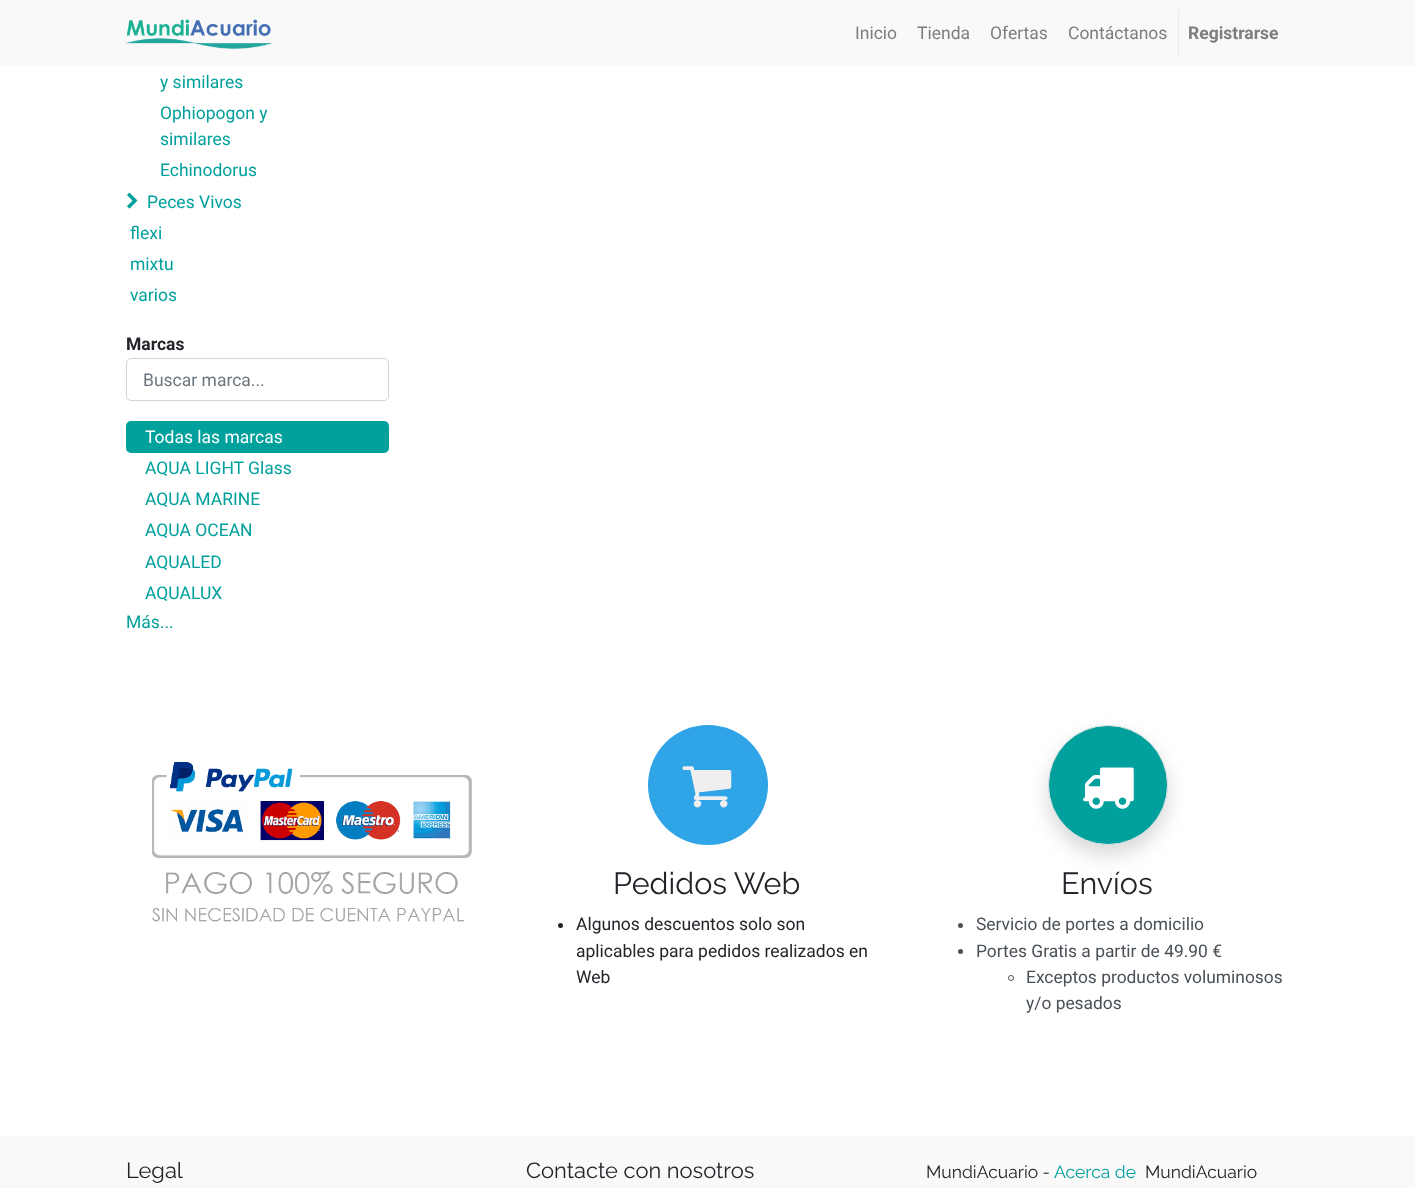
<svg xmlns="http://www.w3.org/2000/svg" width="1415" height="1188">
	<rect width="100%" height="100%" fill="#FFFFFF" />
	<rect x="0" y="0" width="1415" height="66" fill="#F9F9F9" />
	<image x="126" y="19" width="146" height="31" href="assets/img1.png" />
	<g font-family="Roboto" font-size="17.5" fill="#7D7D7D">
		<text x="855" y="39">Inicio</text>
		<text x="917" y="39">Tienda</text>
		<text x="990" y="39">Ofertas</text>
		<text x="1068" y="39">Contáctanos</text>
	</g>
	<rect x="1178" y="10" width="1" height="46" fill="#E9ECEF" />
	<text x="1188" y="39" font-family="Roboto" font-size="17.5" font-weight="700" fill="#7D7D7D">Registrarse</text>
	<g font-family="Roboto" font-size="17.5" fill="#00A09D">
		<text x="160" y="88">y similares</text>
		<text x="160" y="119">Ophiopogon y</text>
		<text x="160" y="145">similares</text>
		<text x="160" y="176">Echinodorus</text>
	</g>
	<image x="127" y="192" width="11" height="17" href="assets/img2.png" />
	<g font-family="Roboto" font-size="17.5" fill="#00A09D">
		<text x="147" y="208">Peces Vivos</text>
		<text x="130" y="239">flexi</text>
		<text x="130" y="270">mixtu</text>
		<text x="130" y="301">varios</text>
	</g>
	<text x="126" y="350" font-family="Roboto" font-size="17.5" font-weight="700" fill="#212529">Marcas</text>
	<rect x="126.5" y="358.5" width="262" height="42" rx="4.5" fill="none" stroke="#CED4DA" />
	<text x="143" y="386" font-family="Roboto" font-size="17.5" fill="#6C757D">Buscar marca...</text>
	<rect x="126" y="421" width="263" height="32" rx="5" fill="#00A09D" />
	<text x="145" y="443" font-family="Roboto" font-size="17.5" fill="#FFFFFF">Todas las marcas</text>
	<g font-family="Roboto" font-size="17.5" fill="#00A09D">
		<text x="145" y="474">AQUA LIGHT Glass</text>
		<text x="145" y="505">AQUA MARINE</text>
		<text x="145" y="536">AQUA OCEAN</text>
		<text x="145" y="568">AQUALED</text>
		<text x="145" y="599">AQUALUX</text>
		<text x="126" y="628">Más...</text>
	</g>
	<image x="152" y="762" width="320" height="160" href="assets/img3.png" />
	<circle cx="708" cy="785" r="60" fill="#2FA4E7" />
	<image x="682" y="766" width="50" height="42" href="assets/img4.png" />
	<text x="613" y="894" font-family="Raleway" font-size="30.5" fill="#212529">Pedidos Web</text>
	<circle cx="560.5" cy="925.5" r="2.5" fill="#212529" />
	<g font-family="Roboto" font-size="17.5" fill="#212529">
		<text x="576" y="930">Algunos descuentos solo son</text>
		<text x="576" y="957">aplicables para pedidos realizados en</text>
		<text x="576" y="983">Web</text>
	</g>
	<rect x="1048" y="735" width="120" height="120" rx="60" fill="#000000" fill-opacity="0.15" filter="blur(10px)" />
	<circle cx="1108" cy="785" r="59.5" fill="#00A09D" stroke="#DEE2E6" />
	<image x="1083" y="767" width="51" height="42" href="assets/img5.png" />
	<text x="1061" y="894" font-family="Raleway" font-size="30.5" fill="#212529">Envíos</text>
	<circle cx="960.5" cy="925.5" r="2.5" fill="#495057" />
	<text x="976" y="930" font-family="Roboto" font-size="17.4" fill="#495057">Servicio de portes a domicilio</text>
	<circle cx="960.5" cy="951.5" r="2.5" fill="#495057" />
	<text x="976" y="957" font-family="Roboto" font-size="17.4" fill="#495057">Portes Gratis a partir de 49.90 €</text>
	<circle cx="1011" cy="978" r="2.5" fill="none" stroke="#495057" />
	<g font-family="Roboto" font-size="17.4" fill="#495057">
		<text x="1026" y="983">Exceptos productos voluminosos</text>
		<text x="1026" y="1009">y/o pesados</text>
	</g>
	<rect x="0" y="1136" width="1415" height="52" fill="#F9F9F9" />
	<g font-family="Raleway" font-size="21.9" fill="#212529">
		<text x="126" y="1178">Legal</text>
		<text x="526" y="1178">Contacte con nosotros</text>
	</g>
	<text x="926" y="1178" font-family="Raleway" font-size="17.5" fill="#212529">MundiAcuario -</text>
	<text x="1054" y="1178" font-family="Raleway" font-size="17.5" fill="#00A09D">Acerca de</text>
	<text x="1145" y="1178" font-family="Raleway" font-size="17.5" fill="#212529">MundiAcuario</text>
</svg>
